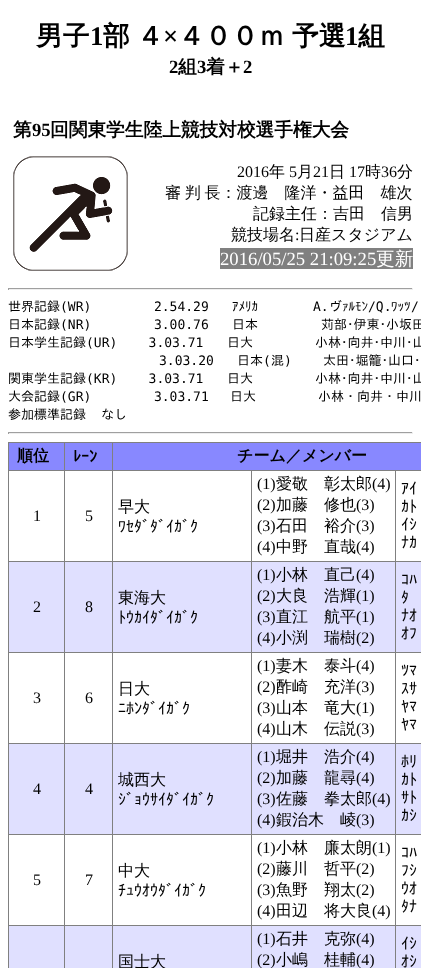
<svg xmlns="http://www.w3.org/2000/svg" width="421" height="968">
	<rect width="100%" height="100%" fill="#FFFFFF" />
	<text x="36" y="45" font-family="WenQuanYi Zen Hei" font-size="26.75" font-weight="700" fill="#000000">男子</text>
	<text x="90" y="45" font-family="Liberation Serif" font-size="26.75" font-weight="700" fill="#000000">1</text>
	<text x="103" y="45" word-spacing="-1" font-family="WenQuanYi Zen Hei" font-size="26.75" font-weight="700" fill="#000000">部 ４</text>
	<text x="163" y="45" font-family="Liberation Serif" font-size="26.75" font-weight="700" fill="#000000">×</text>
	<text x="178" y="45" word-spacing="-1" font-family="WenQuanYi Zen Hei" font-size="26.75" font-weight="700" fill="#000000">４００ｍ 予選</text>
	<text x="345" y="45" font-family="Liberation Serif" font-size="26.75" font-weight="700" fill="#000000">1</text>
	<text x="358" y="45" font-family="WenQuanYi Zen Hei" font-size="26.75" font-weight="700" fill="#000000">組</text>
	<text x="169" y="73" font-family="Liberation Serif" font-size="18.7" font-weight="700" fill="#000000">2</text>
	<text x="178" y="73" font-family="WenQuanYi Zen Hei" font-size="18.7" font-weight="700" fill="#000000">組</text>
	<text x="197" y="73" font-family="Liberation Serif" font-size="18.7" font-weight="700" fill="#000000">3</text>
	<text x="206" y="73" font-family="WenQuanYi Zen Hei" font-size="18.7" font-weight="700" fill="#000000">着＋</text>
	<text x="243" y="73" font-family="Liberation Serif" font-size="18.7" font-weight="700" fill="#000000">2</text>
	<text x="13" y="136" font-family="WenQuanYi Zen Hei" font-size="18.7" font-weight="700" fill="#000000">第</text>
	<text x="32" y="136" font-family="Liberation Serif" font-size="18.7" font-weight="700" fill="#000000">95</text>
	<text x="50" y="136" font-family="WenQuanYi Zen Hei" font-size="18.7" font-weight="700" fill="#000000">回関東学生陸上競技対校選手権大会</text>
	<image x="13" y="156" width="115" height="115" href="assets/img1.png" />
	<text x="237" y="177" font-family="Liberation Serif" font-size="16" fill="#000000">2016</text>
	<text x="269" y="177" font-family="WenQuanYi Zen Hei" font-size="16" font-weight="500" fill="#000000">年</text>
	<text x="289" y="177" font-family="Liberation Serif" font-size="16" fill="#000000">5</text>
	<text x="297" y="177" font-family="WenQuanYi Zen Hei" font-size="16" font-weight="500" fill="#000000">月</text>
	<text x="313" y="177" font-family="Liberation Serif" font-size="16" fill="#000000">21</text>
	<text x="329" y="177" font-family="WenQuanYi Zen Hei" font-size="16" font-weight="500" fill="#000000">日</text>
	<text x="349" y="177" font-family="Liberation Serif" font-size="16" fill="#000000">17</text>
	<text x="365" y="177" font-family="WenQuanYi Zen Hei" font-size="16" font-weight="500" fill="#000000">時</text>
	<text x="381" y="177" font-family="Liberation Serif" font-size="16" fill="#000000">36</text>
	<g font-family="WenQuanYi Zen Hei" font-size="16" font-weight="500" fill="#000000">
		<text x="397" y="177">分</text>
		<text x="165" y="198" word-spacing="-1">審 判 長：渡邊　隆洋・益田　雄次</text>
		<text x="253" y="219">記録主任：吉田　信男</text>
		<text x="231" y="240">競技場名</text>
	</g>
	<text x="295" y="240" font-family="Liberation Serif" font-size="16" fill="#000000">:</text>
	<text x="299" y="240" font-family="WenQuanYi Zen Hei" font-size="16" font-weight="500" fill="#000000">日産スタジアム</text>
	<rect x="220" y="248" width="193" height="21" fill="#808080" />
	<text x="220" y="265" font-family="Liberation Serif" font-size="18.7" fill="#FFFFFF">2016/05/25 21:09:25</text>
	<text x="376" y="265" font-family="WenQuanYi Zen Hei" font-size="18.7" font-weight="500" fill="#FFFFFF">更新</text>
	<rect x="8" y="288" width="405" height="1" fill="#9F9F9F" />
	<rect x="412" y="288" width="1" height="2" fill="#EEEEEE" />
	<rect x="8" y="289" width="405" height="1" fill="#EEEEEE" />
	<rect x="8" y="288" width="1" height="2" fill="#9F9F9F" />
	<text x="8" y="311" font-family="IPAGothic" font-size="13" fill="#000000">世界記録</text>
	<text x="60" y="311" font-family="DejaVu Sans Mono" font-size="13" fill="#000000" xml:space="preserve">(WR)        2.54.29</text>
	<text x="232" y="311" font-family="IPAGothic" font-size="13" fill="#000000">ｱﾒﾘｶ</text>
	<text x="313" y="311" font-family="DejaVu Sans Mono" font-size="13" fill="#000000">A.</text>
	<text x="329" y="311" font-family="IPAGothic" font-size="13" fill="#000000">ヴｧﾙﾓﾝ</text>
	<text x="368" y="311" font-family="DejaVu Sans Mono" font-size="13" fill="#000000">/Q.</text>
	<text x="391" y="311" font-family="IPAGothic" font-size="13" fill="#000000">ﾜｯﾂ</text>
	<text x="411" y="311" font-family="DejaVu Sans Mono" font-size="13" fill="#000000">/</text>
	<text x="8" y="329" font-family="IPAGothic" font-size="13" fill="#000000">日本記録</text>
	<text x="60" y="329" font-family="DejaVu Sans Mono" font-size="13" fill="#000000" xml:space="preserve">(NR)        3.00.76</text>
	<g font-family="IPAGothic" font-size="13" fill="#000000">
		<text x="232" y="329">日本</text>
		<text x="321" y="329">苅部･伊東･小坂田</text>
		<text x="8" y="347">日本学生記録</text>
	</g>
	<text x="86" y="347" font-family="DejaVu Sans Mono" font-size="13" fill="#000000" xml:space="preserve">(UR)    3.03.71</text>
	<g font-family="IPAGothic" font-size="13" fill="#000000">
		<text x="227" y="347">日大</text>
		<text x="315" y="347">小林･向井･中川･山</text>
	</g>
	<text x="159" y="365" font-family="DejaVu Sans Mono" font-size="13" fill="#000000">3.03.20</text>
	<text x="237" y="365" font-family="IPAGothic" font-size="13" fill="#000000">日本</text>
	<text x="263" y="365" font-family="DejaVu Sans Mono" font-size="13" fill="#000000">(</text>
	<text x="271" y="365" font-family="IPAGothic" font-size="13" fill="#000000">混</text>
	<text x="284" y="365" font-family="DejaVu Sans Mono" font-size="13" fill="#000000">)</text>
	<g font-family="IPAGothic" font-size="13" fill="#000000">
		<text x="323" y="365">太田･堀籠･山口･</text>
		<text x="8" y="383">関東学生記録</text>
	</g>
	<text x="86" y="383" font-family="DejaVu Sans Mono" font-size="13" fill="#000000" xml:space="preserve">(KR)    3.03.71</text>
	<g font-family="IPAGothic" font-size="13" fill="#000000">
		<text x="227" y="383">日大</text>
		<text x="315" y="383">小林･向井･中川･山</text>
		<text x="8" y="401">大会記録</text>
	</g>
	<text x="60" y="401" font-family="DejaVu Sans Mono" font-size="13" fill="#000000" xml:space="preserve">(GR)        3.03.71</text>
	<g font-family="IPAGothic" font-size="13" fill="#000000">
		<text x="230" y="401">日大</text>
		<text x="318" y="401">小林・向井・中川</text>
		<text x="8" y="419" word-spacing="1" xml:space="preserve">参加標準記録  なし</text>
	</g>
	<rect x="8" y="432" width="405" height="1" fill="#9F9F9F" />
	<rect x="412" y="432" width="1" height="2" fill="#EEEEEE" />
	<rect x="8" y="433" width="405" height="1" fill="#EEEEEE" />
	<rect x="8" y="432" width="1" height="2" fill="#9F9F9F" />
	<rect x="8" y="442" width="413" height="1" fill="#808080" />
	<rect x="8" y="442" width="1" height="526" fill="#808080" />
	<rect x="9" y="443" width="55" height="27" fill="#8888FF" />
	<rect x="9" y="562" width="412" height="90" fill="#E0E0FF" />
	<rect x="9" y="744" width="412" height="90" fill="#E0E0FF" />
	<rect x="9" y="926" width="412" height="42" fill="#E0E0FF" />
	<rect x="395" y="925" width="1" height="43" fill="#808080" />
	<rect x="395" y="925" width="26" height="1" fill="#808080" />
	<rect x="395" y="834" width="1" height="92" fill="#808080" />
	<rect x="395" y="834" width="26" height="1" fill="#808080" />
	<rect x="395" y="743" width="1" height="92" fill="#808080" />
	<rect x="395" y="743" width="26" height="1" fill="#808080" />
	<rect x="395" y="652" width="1" height="92" fill="#808080" />
	<rect x="395" y="652" width="26" height="1" fill="#808080" />
	<rect x="395" y="561" width="1" height="92" fill="#808080" />
	<rect x="395" y="561" width="26" height="1" fill="#808080" />
	<rect x="395" y="470" width="1" height="92" fill="#808080" />
	<rect x="251" y="925" width="1" height="43" fill="#808080" />
	<rect x="251" y="925" width="145" height="1" fill="#808080" />
	<rect x="251" y="834" width="1" height="92" fill="#808080" />
	<rect x="251" y="834" width="145" height="1" fill="#808080" />
	<rect x="251" y="743" width="1" height="92" fill="#808080" />
	<rect x="251" y="743" width="145" height="1" fill="#808080" />
	<rect x="251" y="652" width="1" height="92" fill="#808080" />
	<rect x="251" y="652" width="145" height="1" fill="#808080" />
	<rect x="251" y="561" width="1" height="92" fill="#808080" />
	<rect x="251" y="561" width="145" height="1" fill="#808080" />
	<rect x="251" y="470" width="1" height="92" fill="#808080" />
	<rect x="112" y="925" width="1" height="43" fill="#808080" />
	<rect x="112" y="925" width="140" height="1" fill="#808080" />
	<rect x="112" y="834" width="1" height="92" fill="#808080" />
	<rect x="112" y="834" width="140" height="1" fill="#808080" />
	<rect x="112" y="743" width="1" height="92" fill="#808080" />
	<rect x="112" y="743" width="140" height="1" fill="#808080" />
	<rect x="112" y="652" width="1" height="92" fill="#808080" />
	<rect x="112" y="652" width="140" height="1" fill="#808080" />
	<rect x="112" y="561" width="1" height="92" fill="#808080" />
	<rect x="112" y="561" width="140" height="1" fill="#808080" />
	<rect x="112" y="470" width="1" height="92" fill="#808080" />
	<rect x="112" y="470" width="309" height="1" fill="#808080" />
	<rect x="112" y="442" width="1" height="29" fill="#808080" />
	<rect x="64" y="925" width="1" height="43" fill="#808080" />
	<rect x="64" y="925" width="49" height="1" fill="#808080" />
	<rect x="64" y="834" width="1" height="92" fill="#808080" />
	<rect x="64" y="834" width="49" height="1" fill="#808080" />
	<rect x="64" y="743" width="1" height="92" fill="#808080" />
	<rect x="64" y="743" width="49" height="1" fill="#808080" />
	<rect x="64" y="652" width="1" height="92" fill="#808080" />
	<rect x="64" y="652" width="49" height="1" fill="#808080" />
	<rect x="64" y="561" width="1" height="92" fill="#808080" />
	<rect x="64" y="561" width="49" height="1" fill="#808080" />
	<rect x="64" y="470" width="1" height="92" fill="#808080" />
	<rect x="64" y="470" width="49" height="1" fill="#808080" />
	<rect x="64" y="442" width="1" height="29" fill="#808080" />
	<rect x="8" y="470" width="57" height="1" fill="#808080" />
	<text x="17" y="461" font-family="WenQuanYi Zen Hei" font-size="16" font-weight="700" fill="#000000">順位</text>
	<rect x="65" y="443" width="47" height="27" fill="#8888FF" />
	<text x="73" y="462" font-family="IPAGothic" font-size="16" font-weight="700" fill="#000000">ﾚｰﾝ</text>
	<rect x="113" y="443" width="308" height="27" fill="#8888FF" />
	<text x="237" y="461" font-family="WenQuanYi Zen Hei" font-size="16" font-weight="700" fill="#000000">チーム／メンバー</text>
	<rect x="8" y="561" width="57" height="1" fill="#808080" />
	<g font-family="Liberation Serif" font-size="16" fill="#000000">
		<text x="33" y="521">1</text>
		<text x="85" y="521">5</text>
	</g>
	<text x="118" y="512" font-family="WenQuanYi Zen Hei" font-size="16" font-weight="500" fill="#000000">早大</text>
	<text x="118" y="532" font-family="IPAGothic" font-size="16" fill="#000000">ﾜｾﾀﾞﾀﾞｲｶﾞｸ</text>
	<text x="257" y="489" font-family="Liberation Serif" font-size="16" fill="#000000">(1)</text>
	<text x="276" y="489" font-family="WenQuanYi Zen Hei" font-size="16" font-weight="500" fill="#000000">愛敬　彰太郎</text>
	<g font-family="Liberation Serif" font-size="16" fill="#000000">
		<text x="372" y="489">(4)</text>
		<text x="257" y="510">(2)</text>
	</g>
	<text x="276" y="510" font-family="WenQuanYi Zen Hei" font-size="16" font-weight="500" fill="#000000">加藤　修也</text>
	<g font-family="Liberation Serif" font-size="16" fill="#000000">
		<text x="356" y="510">(3)</text>
		<text x="257" y="531">(3)</text>
	</g>
	<text x="276" y="531" font-family="WenQuanYi Zen Hei" font-size="16" font-weight="500" fill="#000000">石田　裕介</text>
	<g font-family="Liberation Serif" font-size="16" fill="#000000">
		<text x="356" y="531">(3)</text>
		<text x="257" y="552">(4)</text>
	</g>
	<text x="276" y="552" font-family="WenQuanYi Zen Hei" font-size="16" font-weight="500" fill="#000000">中野　直哉</text>
	<text x="356" y="552" font-family="Liberation Serif" font-size="16" fill="#000000">(4)</text>
	<g font-family="IPAGothic" font-size="16" fill="#000000">
		<text x="401" y="494" word-spacing="-4">ｱｲ</text>
		<text x="401" y="512" word-spacing="-4">ｶﾄ</text>
		<text x="401" y="530" word-spacing="-4">ｲｼ</text>
		<text x="401" y="548" word-spacing="-4">ﾅｶ</text>
	</g>
	<rect x="8" y="652" width="57" height="1" fill="#808080" />
	<g font-family="Liberation Serif" font-size="16" fill="#000000">
		<text x="33" y="612">2</text>
		<text x="85" y="612">8</text>
	</g>
	<text x="118" y="603" font-family="WenQuanYi Zen Hei" font-size="16" font-weight="500" fill="#000000">東海大</text>
	<text x="118" y="623" font-family="IPAGothic" font-size="16" fill="#000000">ﾄｳｶｲﾀﾞｲｶﾞｸ</text>
	<text x="257" y="580" font-family="Liberation Serif" font-size="16" fill="#000000">(1)</text>
	<text x="276" y="580" font-family="WenQuanYi Zen Hei" font-size="16" font-weight="500" fill="#000000">小林　直己</text>
	<g font-family="Liberation Serif" font-size="16" fill="#000000">
		<text x="356" y="580">(4)</text>
		<text x="257" y="601">(2)</text>
	</g>
	<text x="276" y="601" font-family="WenQuanYi Zen Hei" font-size="16" font-weight="500" fill="#000000">大良　浩輝</text>
	<g font-family="Liberation Serif" font-size="16" fill="#000000">
		<text x="356" y="601">(1)</text>
		<text x="257" y="622">(3)</text>
	</g>
	<text x="276" y="622" font-family="WenQuanYi Zen Hei" font-size="16" font-weight="500" fill="#000000">直江　航平</text>
	<g font-family="Liberation Serif" font-size="16" fill="#000000">
		<text x="356" y="622">(1)</text>
		<text x="257" y="643">(4)</text>
	</g>
	<text x="276" y="643" font-family="WenQuanYi Zen Hei" font-size="16" font-weight="500" fill="#000000">小渕　瑞樹</text>
	<text x="356" y="643" font-family="Liberation Serif" font-size="16" fill="#000000">(2)</text>
	<g font-family="IPAGothic" font-size="16" fill="#000000">
		<text x="401" y="585" word-spacing="-4">ｺﾊ</text>
		<text x="401" y="603" word-spacing="-4">ﾀ</text>
		<text x="401" y="621" word-spacing="-4">ﾅｵ</text>
		<text x="401" y="639" word-spacing="-4">ｵﾌ</text>
	</g>
	<rect x="8" y="743" width="57" height="1" fill="#808080" />
	<g font-family="Liberation Serif" font-size="16" fill="#000000">
		<text x="33" y="703">3</text>
		<text x="85" y="703">6</text>
	</g>
	<text x="118" y="694" font-family="WenQuanYi Zen Hei" font-size="16" font-weight="500" fill="#000000">日大</text>
	<text x="118" y="714" font-family="IPAGothic" font-size="16" fill="#000000">ﾆﾎﾝﾀﾞｲｶﾞｸ</text>
	<text x="257" y="671" font-family="Liberation Serif" font-size="16" fill="#000000">(1)</text>
	<text x="276" y="671" font-family="WenQuanYi Zen Hei" font-size="16" font-weight="500" fill="#000000">妻木　泰斗</text>
	<g font-family="Liberation Serif" font-size="16" fill="#000000">
		<text x="356" y="671">(4)</text>
		<text x="257" y="692">(2)</text>
	</g>
	<text x="276" y="692" font-family="WenQuanYi Zen Hei" font-size="16" font-weight="500" fill="#000000">酢崎　充洋</text>
	<g font-family="Liberation Serif" font-size="16" fill="#000000">
		<text x="356" y="692">(3)</text>
		<text x="257" y="713">(3)</text>
	</g>
	<text x="276" y="713" font-family="WenQuanYi Zen Hei" font-size="16" font-weight="500" fill="#000000">山本　竜大</text>
	<g font-family="Liberation Serif" font-size="16" fill="#000000">
		<text x="356" y="713">(1)</text>
		<text x="257" y="734">(4)</text>
	</g>
	<text x="276" y="734" font-family="WenQuanYi Zen Hei" font-size="16" font-weight="500" fill="#000000">山木　伝説</text>
	<text x="356" y="734" font-family="Liberation Serif" font-size="16" fill="#000000">(3)</text>
	<g font-family="IPAGothic" font-size="16" fill="#000000">
		<text x="401" y="676" word-spacing="-4">ﾂﾏ</text>
		<text x="401" y="694" word-spacing="-4">ｽｻ</text>
		<text x="401" y="712" word-spacing="-4">ﾔﾏ</text>
		<text x="401" y="730" word-spacing="-4">ﾔﾏ</text>
	</g>
	<rect x="8" y="834" width="57" height="1" fill="#808080" />
	<g font-family="Liberation Serif" font-size="16" fill="#000000">
		<text x="33" y="794">4</text>
		<text x="85" y="794">4</text>
	</g>
	<text x="118" y="785" font-family="WenQuanYi Zen Hei" font-size="16" font-weight="500" fill="#000000">城西大</text>
	<text x="118" y="805" font-family="IPAGothic" font-size="16" fill="#000000">ｼﾞｮｳｻｲﾀﾞｲｶﾞｸ</text>
	<text x="257" y="762" font-family="Liberation Serif" font-size="16" fill="#000000">(1)</text>
	<text x="276" y="762" font-family="WenQuanYi Zen Hei" font-size="16" font-weight="500" fill="#000000">堀井　浩介</text>
	<g font-family="Liberation Serif" font-size="16" fill="#000000">
		<text x="356" y="762">(4)</text>
		<text x="257" y="783">(2)</text>
	</g>
	<text x="276" y="783" font-family="WenQuanYi Zen Hei" font-size="16" font-weight="500" fill="#000000">加藤　龍尋</text>
	<g font-family="Liberation Serif" font-size="16" fill="#000000">
		<text x="356" y="783">(4)</text>
		<text x="257" y="804">(3)</text>
	</g>
	<text x="276" y="804" font-family="WenQuanYi Zen Hei" font-size="16" font-weight="500" fill="#000000">佐藤　拳太郎</text>
	<g font-family="Liberation Serif" font-size="16" fill="#000000">
		<text x="372" y="804">(4)</text>
		<text x="257" y="825">(4)</text>
	</g>
	<text x="276" y="825" font-family="WenQuanYi Zen Hei" font-size="16" font-weight="500" fill="#000000">鍜治木　崚</text>
	<text x="356" y="825" font-family="Liberation Serif" font-size="16" fill="#000000">(3)</text>
	<g font-family="IPAGothic" font-size="16" fill="#000000">
		<text x="401" y="767" word-spacing="-4">ﾎﾘ</text>
		<text x="401" y="785" word-spacing="-4">ｶﾄ</text>
		<text x="401" y="803" word-spacing="-4">ｻﾄ</text>
		<text x="401" y="821" word-spacing="-4">ｶｼ</text>
	</g>
	<rect x="8" y="925" width="57" height="1" fill="#808080" />
	<g font-family="Liberation Serif" font-size="16" fill="#000000">
		<text x="33" y="885">5</text>
		<text x="85" y="885">7</text>
	</g>
	<text x="118" y="876" font-family="WenQuanYi Zen Hei" font-size="16" font-weight="500" fill="#000000">中大</text>
	<text x="118" y="896" font-family="IPAGothic" font-size="16" fill="#000000">ﾁｭｳｵｳﾀﾞｲｶﾞｸ</text>
	<text x="257" y="853" font-family="Liberation Serif" font-size="16" fill="#000000">(1)</text>
	<text x="276" y="853" font-family="WenQuanYi Zen Hei" font-size="16" font-weight="500" fill="#000000">小林　廉太朗</text>
	<g font-family="Liberation Serif" font-size="16" fill="#000000">
		<text x="372" y="853">(1)</text>
		<text x="257" y="874">(2)</text>
	</g>
	<text x="276" y="874" font-family="WenQuanYi Zen Hei" font-size="16" font-weight="500" fill="#000000">藤川　哲平</text>
	<g font-family="Liberation Serif" font-size="16" fill="#000000">
		<text x="356" y="874">(2)</text>
		<text x="257" y="895">(3)</text>
	</g>
	<text x="276" y="895" font-family="WenQuanYi Zen Hei" font-size="16" font-weight="500" fill="#000000">魚野　翔太</text>
	<g font-family="Liberation Serif" font-size="16" fill="#000000">
		<text x="356" y="895">(2)</text>
		<text x="257" y="916">(4)</text>
	</g>
	<text x="276" y="916" font-family="WenQuanYi Zen Hei" font-size="16" font-weight="500" fill="#000000">田辺　将大良</text>
	<text x="372" y="916" font-family="Liberation Serif" font-size="16" fill="#000000">(4)</text>
	<g font-family="IPAGothic" font-size="16" fill="#000000">
		<text x="401" y="858" word-spacing="-4">ｺﾊ</text>
		<text x="401" y="876" word-spacing="-4">ﾌｼ</text>
		<text x="401" y="894" word-spacing="-4">ｳｵ</text>
		<text x="401" y="912" word-spacing="-4">ﾀﾅ</text>
	</g>
	<text x="118" y="967" font-family="WenQuanYi Zen Hei" font-size="16" font-weight="500" fill="#000000">国士大</text>
	<text x="257" y="944" font-family="Liberation Serif" font-size="16" fill="#000000">(1)</text>
	<text x="276" y="944" font-family="WenQuanYi Zen Hei" font-size="16" font-weight="500" fill="#000000">石井　克弥</text>
	<g font-family="Liberation Serif" font-size="16" fill="#000000">
		<text x="356" y="944">(4)</text>
		<text x="257" y="965">(2)</text>
	</g>
	<text x="276" y="965" font-family="WenQuanYi Zen Hei" font-size="16" font-weight="500" fill="#000000">小嶋　桂輔</text>
	<text x="356" y="965" font-family="Liberation Serif" font-size="16" fill="#000000">(4)</text>
	<g font-family="IPAGothic" font-size="16" fill="#000000">
		<text x="401" y="949" word-spacing="-4">ｲｼ</text>
		<text x="401" y="967" word-spacing="-4">ｵｼ</text>
	</g>
</svg>
